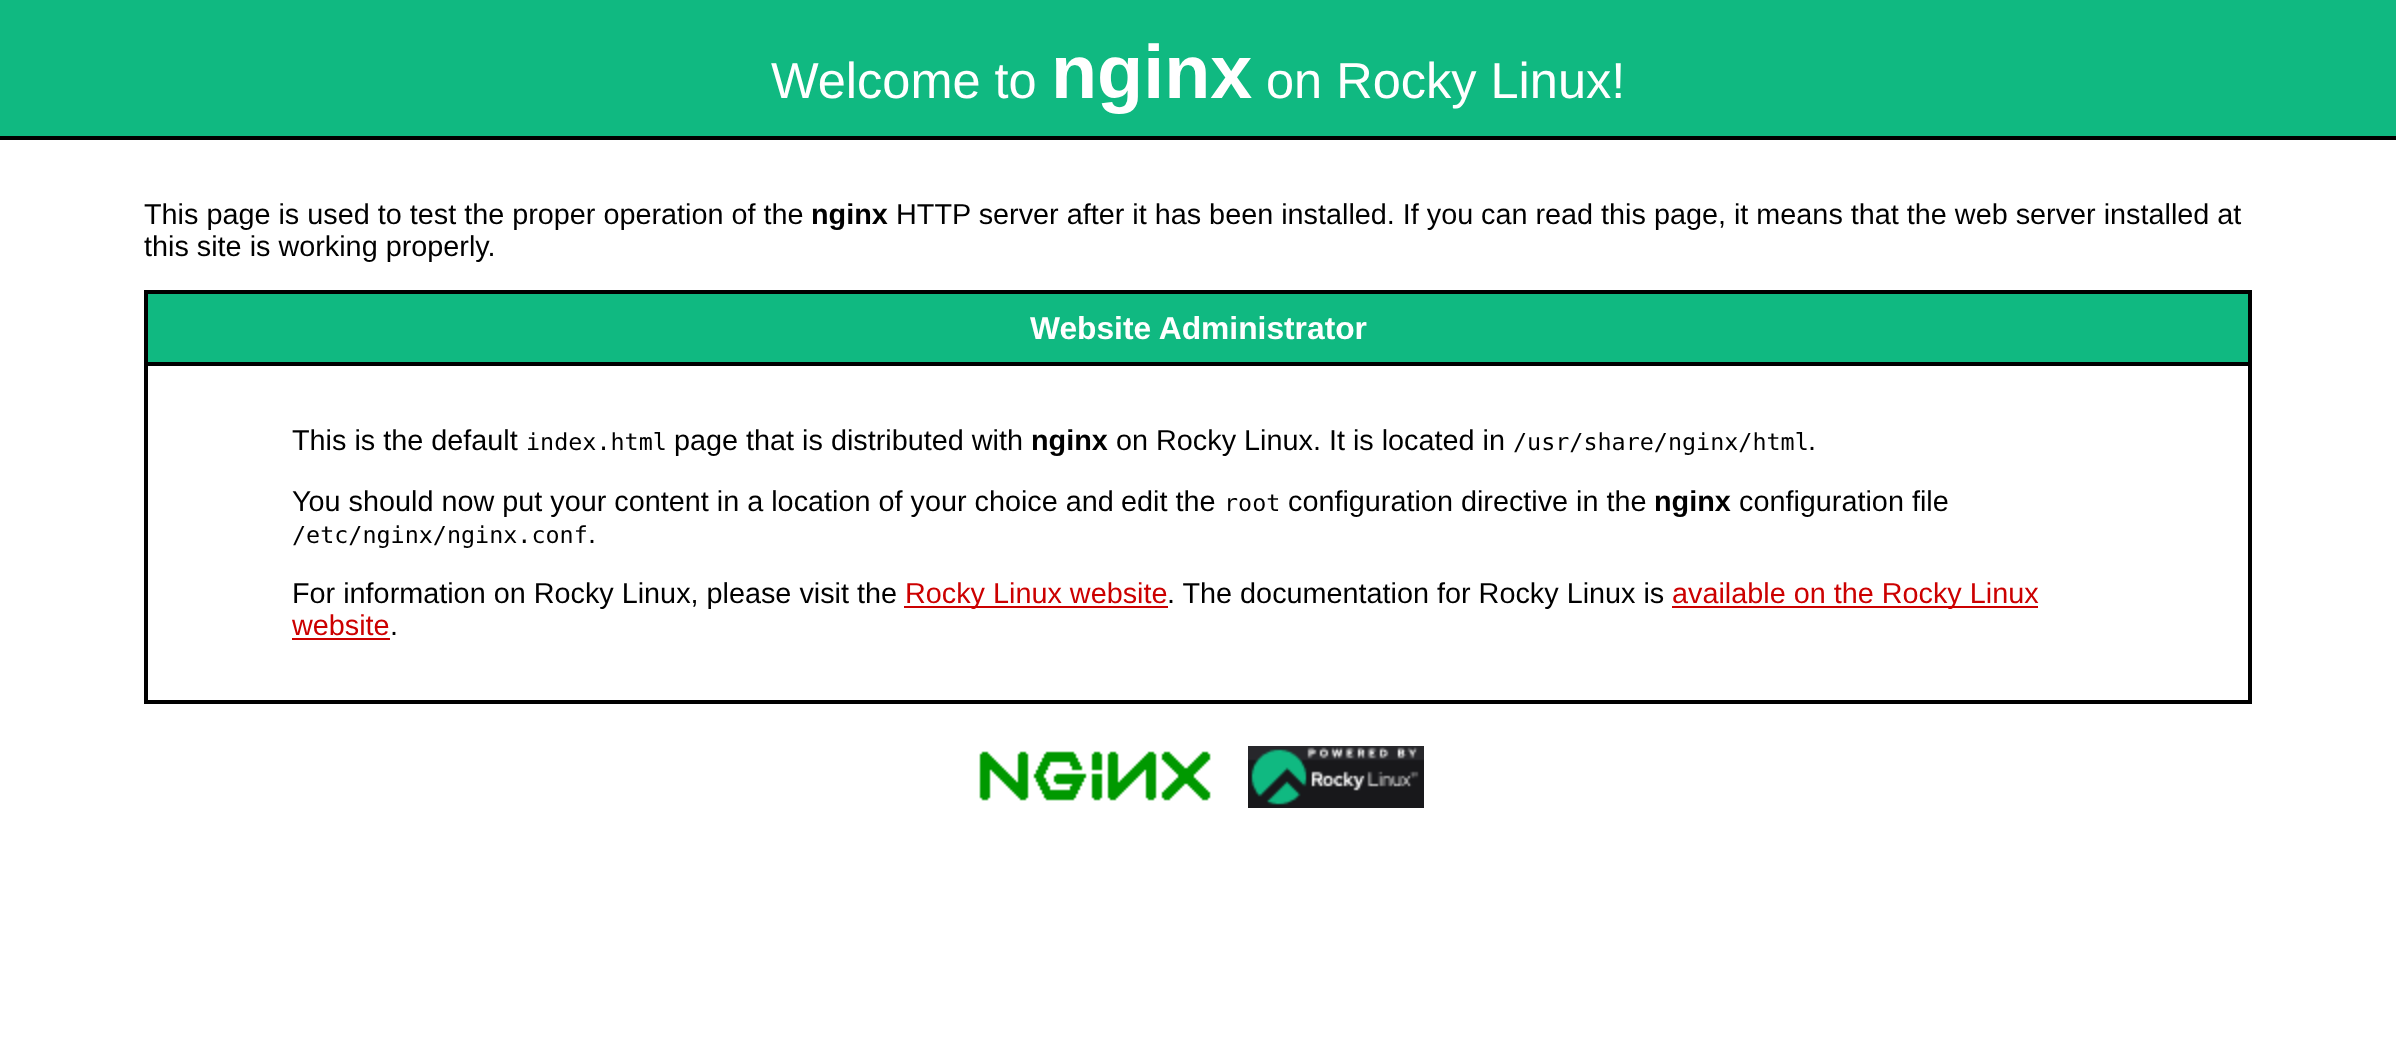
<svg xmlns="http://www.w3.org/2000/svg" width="2396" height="1047">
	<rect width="100%" height="100%" fill="#FFFFFF" />
	<rect x="0" y="0" width="2396" height="136" fill="#10B981" />
	<rect x="0" y="136" width="2396" height="4" fill="#000000" />
	<text x="771" y="98" font-family="Liberation Sans" font-size="50.5" fill="#FFFFFF">Welcome to</text>
	<text x="1051" y="98" font-family="Liberation Sans" font-size="75.5" font-weight="700" fill="#FFFFFF">nginx</text>
	<text x="1266" y="98" font-family="Liberation Sans" font-size="50.5" fill="#FFFFFF">on Rocky Linux!</text>
	<text x="144" y="224" font-family="Liberation Sans" font-size="28.8" fill="#000000">This page is used to test the proper operation of the</text>
	<text x="811" y="224" font-family="Liberation Sans" font-size="28.8" font-weight="700" fill="#000000">nginx</text>
	<g font-family="Liberation Sans" font-size="28.8" fill="#000000">
		<text x="896" y="224">HTTP server after it has been installed. If you</text>
		<text x="1481" y="224">can read this page, it means that the web server installed at</text>
		<text x="144" y="256">this site is working properly.</text>
	</g>
	<rect x="146" y="292" width="2104" height="410" fill="none" stroke="#000000" stroke-width="4" />
	<rect x="148" y="294" width="2100" height="68" fill="#10B981" />
	<rect x="148" y="362" width="2100" height="4" fill="#000000" />
	<text x="1030" y="339" font-family="Liberation Sans" font-size="31.75" font-weight="700" fill="#FFFFFF">Website Administrator</text>
	<text x="292" y="450" font-family="Liberation Sans" font-size="28.8" fill="#000000">This is the default</text>
	<text x="526" y="450" font-family="DejaVu Sans Mono" font-size="23.4" fill="#000000">index.html</text>
	<text x="674" y="450" font-family="Liberation Sans" font-size="28.8" fill="#000000">page that is distributed with</text>
	<text x="1031" y="450" font-family="Liberation Sans" font-size="28.8" font-weight="700" fill="#000000">nginx</text>
	<text x="1116" y="450" font-family="Liberation Sans" font-size="28.8" fill="#000000">on Rocky Linux. It is located in</text>
	<text x="1513" y="450" font-family="DejaVu Sans Mono" font-size="23.4" fill="#000000">/usr/share/nginx/html</text>
	<g font-family="Liberation Sans" font-size="28.8" fill="#000000">
		<text x="1808" y="450">.</text>
		<text x="292" y="511">You should now put your content in a location of your choice and</text>
		<text x="1121" y="511">edit the</text>
	</g>
	<text x="1224" y="511" font-family="DejaVu Sans Mono" font-size="23.4" fill="#000000">root</text>
	<text x="1288" y="511" font-family="Liberation Sans" font-size="28.8" fill="#000000">configuration directive in the</text>
	<text x="1654" y="511" font-family="Liberation Sans" font-size="28.8" font-weight="700" fill="#000000">nginx</text>
	<text x="1739" y="511" font-family="Liberation Sans" font-size="28.8" fill="#000000">configuration file</text>
	<text x="292" y="543" font-family="DejaVu Sans Mono" font-size="23.4" fill="#000000">/etc/nginx/nginx.conf</text>
	<g font-family="Liberation Sans" font-size="28.8" fill="#000000">
		<text x="588" y="543">.</text>
		<text x="292" y="603">For information on Rocky Linux, please visit the</text>
	</g>
	<rect x="904" y="606" width="264" height="2" fill="#CC0000" />
	<text x="905" y="603" font-family="Liberation Sans" font-size="28.8" fill="#CC0000">Rocky Linux website</text>
	<text x="1167" y="603" font-family="Liberation Sans" font-size="28.8" fill="#000000">. The documentation for Rocky Linux is</text>
	<rect x="1672" y="606" width="366" height="2" fill="#CC0000" />
	<g font-family="Liberation Sans" font-size="28.8" fill="#CC0000">
		<text x="1672" y="603">available on the Rocky Linux</text>
		<text x="292" y="635">website</text>
	</g>
	<rect x="292" y="638" width="98" height="2" fill="#CC0000" />
	<text x="390" y="635" font-family="Liberation Sans" font-size="28.8" fill="#000000">.</text>
	<image x="979" y="751" width="232" height="50" href="assets/img1.png" />
	<image x="1248" y="746" width="176" height="62" href="assets/img2.png" />
</svg>
